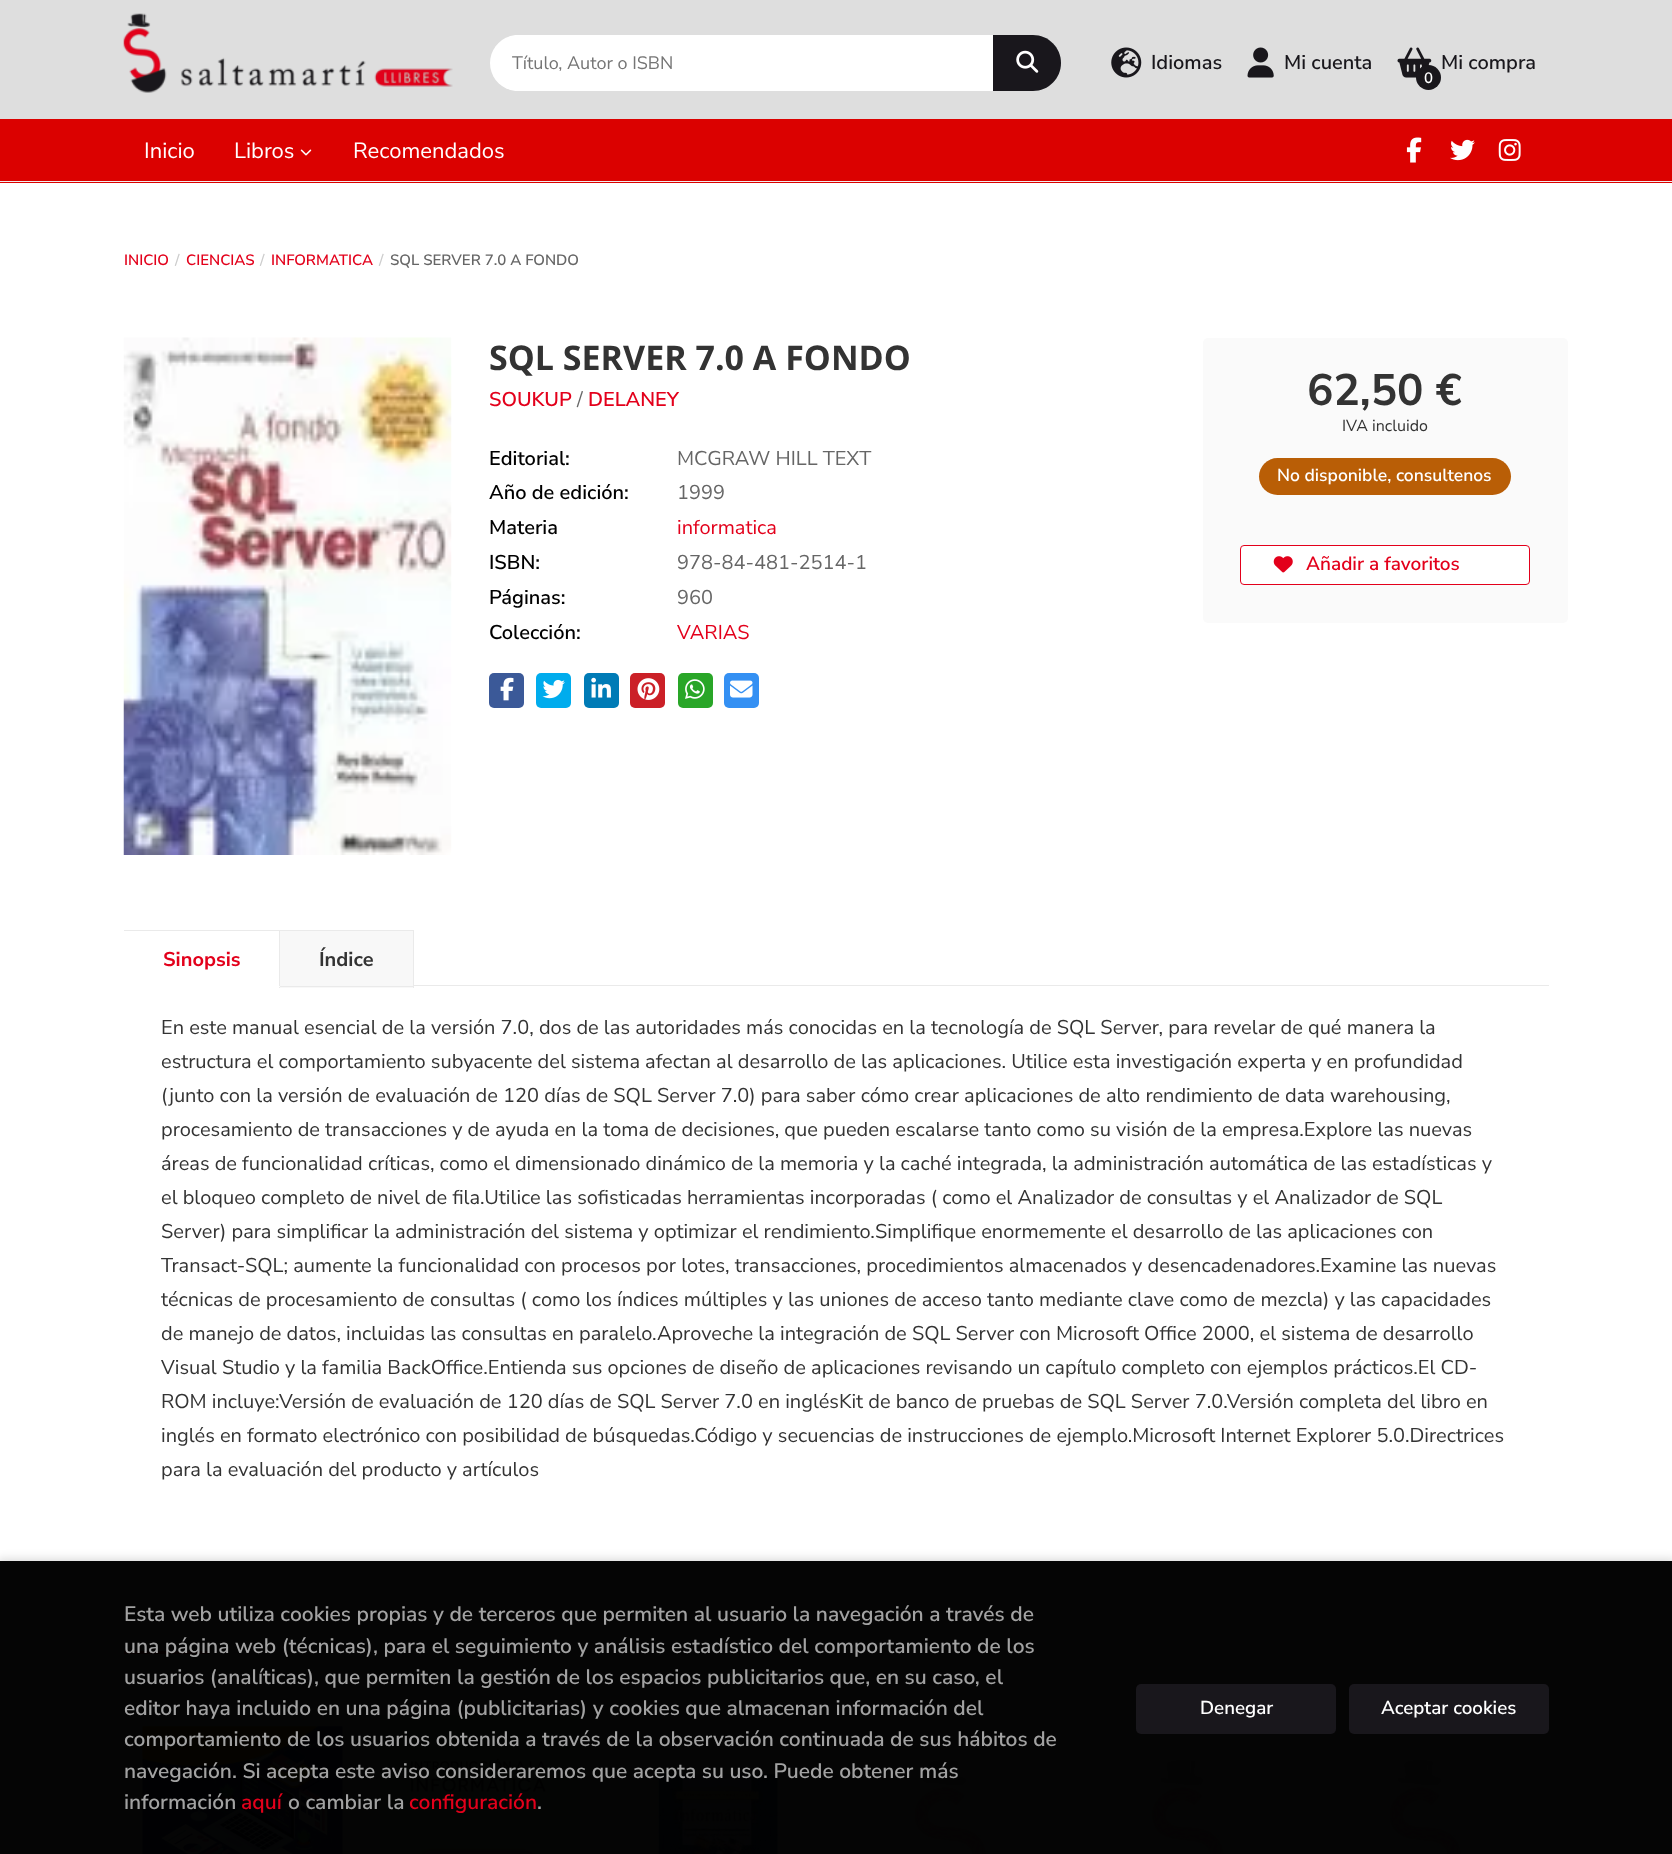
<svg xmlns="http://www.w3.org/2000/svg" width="1672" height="1854">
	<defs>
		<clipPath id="clip1"><path d="M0 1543H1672V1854H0ZM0 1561H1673V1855H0Z" clip-rule="evenodd" /></clipPath>
	</defs>
	<rect width="100%" height="100%" fill="#FFFFFF" />
	<rect x="0" y="0" width="1672" height="119" fill="#DEDEDE" />
	<image x="123" y="13" width="330" height="80" href="assets/img1.png" />
	<path d="M518 35H993V91H518C502.5 91 490 78.5 490 63C490 47.5 502.5 35 518 35Z" fill="#FFFFFF" />
	<text x="512" y="69" font-family="Nunito Sans" font-size="18" fill="#757575">Título, Autor o ISBN</text>
	<path d="M993 35H1033C1048.5 35 1061 47.5 1061 63C1061 78.5 1048.5 91 1033 91H993Z" fill="#19171C" />
	<image x="1016" y="50" width="23" height="23" href="assets/img2.png" />
	<image x="1111" y="47" width="31" height="31" href="assets/img3.png" />
	<text x="1151" y="69" font-family="Nunito Sans" font-size="20" font-weight="600" fill="#19171C">Idiomas</text>
	<image x="1247" y="47" width="27" height="31" href="assets/img4.png" />
	<text x="1284" y="69" font-family="Nunito Sans" font-size="20" font-weight="600" fill="#19171C">Mi cuenta</text>
	<image x="1397" y="47" width="35" height="31" href="assets/img5.png" />
	<text x="1441" y="69" font-family="Nunito Sans" font-size="20" font-weight="600" fill="#19171C">Mi compra</text>
	<circle cx="1428.5" cy="77.5" r="12.5" fill="#19171C" />
	<text x="1424" y="83" font-family="Nunito Sans" font-size="15" font-weight="600" fill="#FFFFFF">0</text>
	<rect x="0" y="119" width="1672" height="64" fill="#DB0100" />
	<rect x="0" y="181" width="1672" height="1" fill="#EEEEEE" />
	<g font-family="Nunito Sans" font-size="22" fill="#FFFFFF">
		<text x="144" y="158">Inicio</text>
		<text x="234" y="158">Libros</text>
	</g>
	<image x="300" y="149" width="12" height="7" href="assets/img6.png" />
	<text x="353" y="158" font-family="Nunito Sans" font-size="22" fill="#FFFFFF">Recomendados</text>
	<image x="1406" y="137" width="16" height="26" href="assets/img7.png" />
	<image x="1450" y="139" width="25" height="22" href="assets/img8.png" />
	<image x="1498" y="139" width="23" height="22" href="assets/img9.png" />
	<text x="124" y="265" font-family="Nunito Sans" font-size="15" font-weight="600" fill="#E3001B">INICIO</text>
	<text x="175" y="265" font-family="Nunito Sans" font-size="15" font-weight="600" fill="#CCCCCC">/</text>
	<text x="186" y="265" font-family="Nunito Sans" font-size="15" font-weight="600" fill="#E3001B">CIENCIAS</text>
	<text x="260" y="265" font-family="Nunito Sans" font-size="15" font-weight="600" fill="#CCCCCC">/</text>
	<text x="271" y="265" font-family="Nunito Sans" font-size="15" font-weight="600" fill="#E3001B">INFORMATICA</text>
	<text x="379" y="265" font-family="Nunito Sans" font-size="15" font-weight="600" fill="#CCCCCC">/</text>
	<text x="390" y="265" font-family="Nunito Sans" font-size="15" font-weight="600" fill="#666666">SQL SERVER 7.0 A FONDO</text>
	<image x="123" y="337" width="329" height="518" href="assets/img10.png" />
	<text x="489" y="370" font-family="Open Sans" font-size="34" font-weight="700" fill="#333333">SQL SERVER 7.0 A FONDO</text>
	<text x="489" y="406" font-family="Nunito Sans" font-size="20" font-weight="600" fill="#E3001B">SOUKUP</text>
	<text x="577" y="406" font-family="Nunito Sans" font-size="20" fill="#666666">/</text>
	<text x="588" y="406" font-family="Nunito Sans" font-size="20" font-weight="600" fill="#E3001B">DELANEY</text>
	<text x="489" y="465" font-family="Nunito Sans" font-size="20" font-weight="600" fill="#000000">Editorial:</text>
	<text x="677" y="465" font-family="Nunito Sans" font-size="20" fill="#666666">MCGRAW HILL TEXT</text>
	<text x="489" y="499" font-family="Nunito Sans" font-size="20" font-weight="600" fill="#000000">Año de edición:</text>
	<text x="677" y="499" font-family="Nunito Sans" font-size="20" fill="#666666">1999</text>
	<text x="489" y="534" font-family="Nunito Sans" font-size="20" font-weight="600" fill="#000000">Materia</text>
	<text x="677" y="534" font-family="Nunito Sans" font-size="20" fill="#E3001B">informatica</text>
	<text x="489" y="569" font-family="Nunito Sans" font-size="20" font-weight="600" fill="#000000">ISBN:</text>
	<text x="677" y="569" font-family="Nunito Sans" font-size="20" fill="#666666">978-84-481-2514-1</text>
	<text x="489" y="604" font-family="Nunito Sans" font-size="20" font-weight="600" fill="#000000">Páginas:</text>
	<text x="677" y="604" font-family="Nunito Sans" font-size="20" fill="#666666">960</text>
	<text x="489" y="639" font-family="Nunito Sans" font-size="20" font-weight="600" fill="#000000">Colección:</text>
	<text x="677" y="639" font-family="Nunito Sans" font-size="20" fill="#E3001B">VARIAS</text>
	<rect x="489" y="673" width="35" height="35" rx="5" fill="#3B5998" />
	<image x="500" y="677" width="14" height="24" href="assets/img11.png" />
	<rect x="536" y="673" width="35" height="35" rx="5" fill="#00ACED" />
	<image x="542" y="679" width="23" height="20" href="assets/img12.png" />
	<rect x="584" y="673" width="35" height="35" rx="5" fill="#007BB6" />
	<image x="591" y="677" width="20" height="21" href="assets/img13.png" />
	<rect x="630" y="673" width="35" height="35" rx="5" fill="#CB2027" />
	<image x="637" y="678" width="23" height="22" href="assets/img14.png" />
	<rect x="678" y="673" width="35" height="35" rx="5" fill="#29A628" />
	<image x="685" y="679" width="20" height="20" href="assets/img15.png" />
	<rect x="724" y="673" width="35" height="35" rx="5" fill="#3490F3" />
	<image x="730" y="680" width="23" height="18" href="assets/img16.png" />
	<rect x="1203" y="338" width="365" height="285" rx="5" fill="#FAFAFA" />
	<text x="1307" y="405" font-family="Nunito Sans" font-size="44" font-weight="700" fill="#333333">62,50 €</text>
	<text x="1342" y="431" font-family="Nunito Sans" font-size="16" fill="#333333">IVA incluido</text>
	<rect x="1259" y="458" width="252" height="37" rx="18.5" fill="#B95E06" />
	<text x="1277" y="481" font-family="Nunito Sans" font-size="17.5" font-weight="600" fill="#FFFFFF">No disponible, consultenos</text>
	<rect x="1240.5" y="545.5" width="289" height="39" rx="3.5" fill="#FFFFFF" stroke="#E3001B" />
	<image x="1273" y="556" width="20" height="17" href="assets/img17.png" />
	<text x="1306" y="570" font-family="Nunito Sans" font-size="19" font-weight="600" fill="#E3001B">Añadir a favoritos</text>
	<rect x="414" y="985" width="1135" height="1" fill="#EAEAEA" />
	<rect x="124" y="930" width="290" height="1" fill="#EAEAEA" />
	<rect x="279" y="930" width="1" height="58" fill="#EAEAEA" />
	<rect x="279" y="986" width="1" height="1" fill="#FDFDFD" />
	<text x="163" y="966" font-family="Nunito Sans" font-size="20" font-weight="700" fill="#E3001B">Sinopsis</text>
	<rect x="280" y="931" width="133" height="57" fill="#F8F8F8" />
	<rect x="413" y="930" width="1" height="58" fill="#EAEAEA" />
	<rect x="280" y="986" width="134" height="1" fill="#EAEAEA" />
	<text x="319" y="966" font-family="Nunito Sans" font-size="20" font-weight="700" fill="#333333">Índice</text>
	<g font-family="Nunito Sans" font-size="20" fill="#333333">
		<text x="161" y="1034">En este manual esencial de la versión 7.0, dos de las autoridades más conocidas en la tecnología de SQL Server, para revelar de qué manera la</text>
		<text x="161" y="1068">estructura el comportamiento subyacente del sistema afectan al desarrollo de las aplicaciones. Utilice esta investigación experta y en profundidad</text>
		<text x="161" y="1102">(junto con la versión de evaluación de 120 días de SQL Server 7.0) para saber cómo crear aplicaciones de alto rendimiento de data warehousing,</text>
		<text x="161" y="1136">procesamiento de transacciones y de ayuda en la toma de decisiones, que pueden escalarse tanto como su visión de la empresa.Explore las nuevas</text>
		<text x="161" y="1170">áreas de funcionalidad críticas, como el dimensionado dinámico de la memoria y la caché integrada, la administración automática de las estadísticas y</text>
		<text x="161" y="1204">el bloqueo completo de nivel de fila.Utilice las sofisticadas herramientas incorporadas ( como el Analizador de consultas y el Analizador de SQL</text>
		<text x="161" y="1238">Server) para simplificar la administración del sistema y optimizar el rendimiento.Simplifique enormemente el desarrollo de las aplicaciones con</text>
		<text x="161" y="1272">Transact-SQL; aumente la funcionalidad con procesos por lotes, transacciones, procedimientos almacenados y desencadenadores.Examine las nuevas</text>
		<text x="161" y="1306">técnicas de procesamiento de consultas ( como los índices múltiples y las uniones de acceso tanto mediante clave como de mezcla) y las capacidades</text>
		<text x="161" y="1340">de manejo de datos, incluidas las consultas en paralelo.Aproveche la integración de SQL Server con Microsoft Office 2000, el sistema de desarrollo</text>
		<text x="161" y="1374">Visual Studio y la familia BackOffice.Entienda sus opciones de diseño de aplicaciones revisando un capítulo completo con ejemplos prácticos.El CD-</text>
		<text x="161" y="1408">ROM incluye:Versión de evaluación de 120 días de SQL Server 7.0 en inglésKit de banco de pruebas de SQL Server 7.0.Versión completa del libro en</text>
		<text x="161" y="1442">inglés en formato electrónico con posibilidad de búsquedas.Código y secuencias de instrucciones de ejemplo.Microsoft Internet Explorer 5.0.Directrices</text>
		<text x="161" y="1476">para la evaluación del producto y artículos</text>
	</g>
	<rect x="124" y="1651" width="85" height="3" fill="#E3001B" />
	<image x="142" y="1726" width="201" height="128" href="assets/img18.png" />
	<image x="380" y="1715" width="200" height="139" href="assets/img19.png" />
	<image x="658" y="1773" width="120" height="81" href="assets/img20.png" />
	<image x="863" y="1697" width="184" height="157" href="assets/img21.png" />
	<image x="1101" y="1697" width="183" height="157" href="assets/img22.png" />
	<image x="1338" y="1697" width="184" height="157" href="assets/img21.png" />
	<g clip-path="url(#clip1)">
		<rect x="-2" y="1559" width="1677" height="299" fill="#000000" fill-opacity="0.15" filter="blur(5px)" />
	</g>
	<rect x="0" y="1561" width="1672" height="293" fill="#000000" fill-opacity="0.98" />
	<g font-family="Nunito Sans" font-size="21" font-weight="600" fill="#A2A2A2">
		<text x="124" y="1621">Esta web utiliza cookies propias y de terceros que permiten al usuario la navegación a través de</text>
		<text x="124" y="1653">una página web (técnicas), para el seguimiento y análisis estadístico del comportamiento de los</text>
		<text x="124" y="1684">usuarios (analíticas), que permiten la gestión de los espacios publicitarios que, en su caso, el</text>
		<text x="124" y="1715">editor haya incluido en una página (publicitarias) y cookies que almacenan información del</text>
		<text x="124" y="1746">comportamiento de los usuarios obtenida a través de la observación continuada de sus hábitos de</text>
		<text x="124" y="1778">navegación. Si acepta este aviso consideraremos que acepta su uso. Puede obtener más</text>
		<text x="124" y="1809">información</text>
	</g>
	<text x="241" y="1809" font-family="Nunito Sans" font-size="21" font-weight="600" fill="#E3001B">aquí</text>
	<text x="288" y="1809" font-family="Nunito Sans" font-size="21" font-weight="600" fill="#A2A2A2">o cambiar la</text>
	<text x="409" y="1809" font-family="Nunito Sans" font-size="21" font-weight="600" fill="#E3001B">configuración</text>
	<text x="537" y="1809" font-family="Nunito Sans" font-size="21" font-weight="600" fill="#A2A2A2">.</text>
	<rect x="1136" y="1684" width="200" height="50" rx="5" fill="#19171C" />
	<text x="1200" y="1714" font-family="Nunito Sans" font-size="18.75" font-weight="600" fill="#FFFFFF">Denegar</text>
	<rect x="1349" y="1684" width="200" height="50" rx="5" fill="#19171C" />
	<text x="1381" y="1714" font-family="Nunito Sans" font-size="18.75" font-weight="600" fill="#FFFFFF">Aceptar cookies</text>
</svg>
